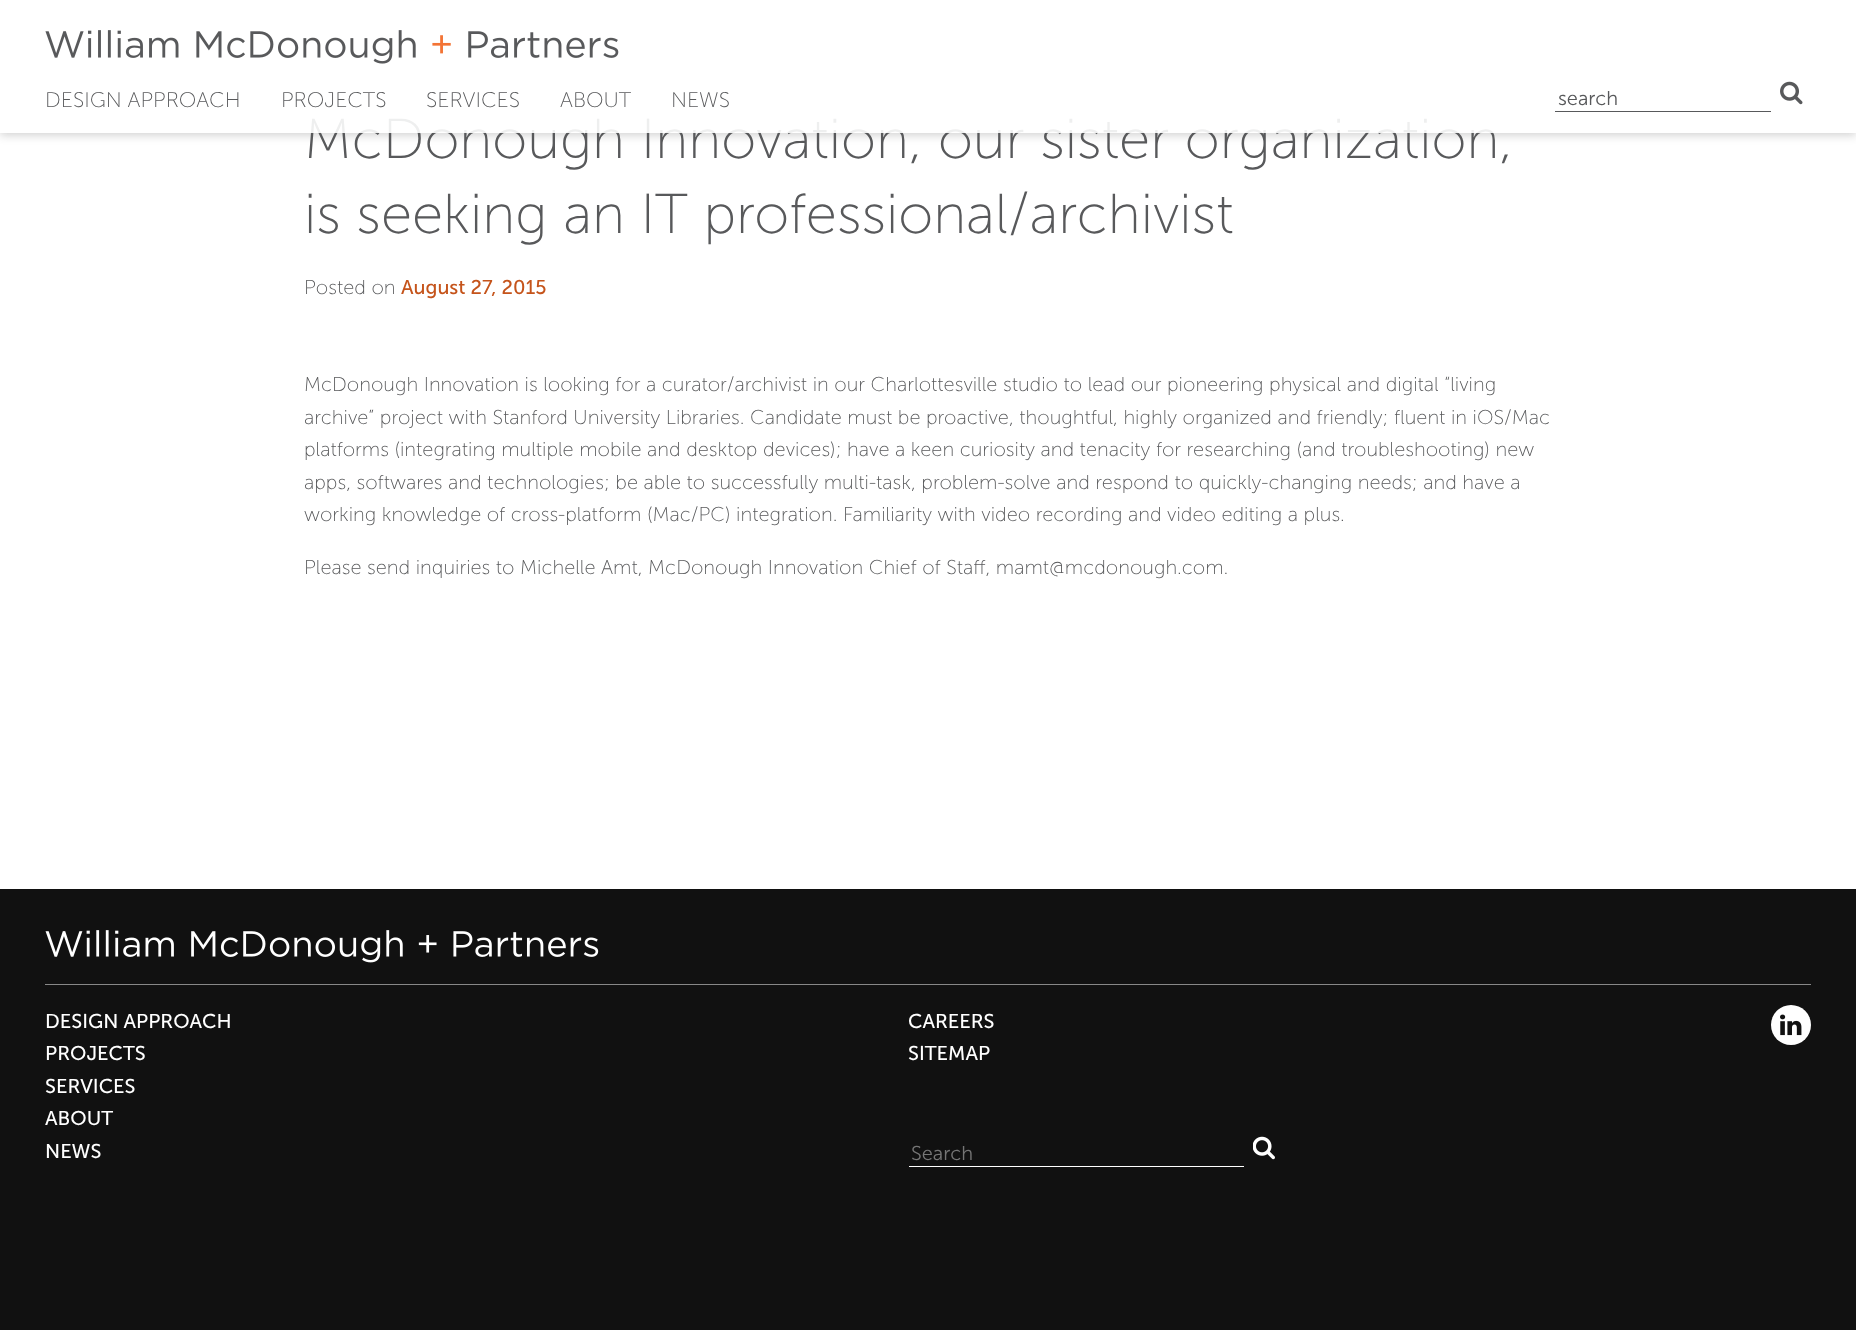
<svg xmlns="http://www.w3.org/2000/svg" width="1856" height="1330">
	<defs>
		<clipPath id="clip1"><path d="M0 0H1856V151H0ZM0 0H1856V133H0Z" clip-rule="evenodd" /></clipPath>
	</defs>
	<rect width="100%" height="100%" fill="#FFFFFF" />
	<g clip-path="url(#clip1)">
		<rect x="0" y="3" width="1856" height="132" fill="#111111" fill-opacity="0.2" filter="blur(5px)" />
	</g>
	<text x="304" y="158" font-family="'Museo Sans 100'" font-size="56.25" font-weight="300" fill="#58595B">McDonough Innovation, our sister organization,</text>
	<rect x="0" y="118" width="1856" height="15" fill="#FFFFFF" fill-opacity="0.9" />
	<image x="45" y="30" width="574" height="34" href="assets/img1.png" />
	<g font-family="'Museo Sans 100'" font-size="21.25" font-weight="300" fill="#58595B">
		<text x="45" y="107">DESIGN APPROACH</text>
		<text x="281" y="107">PROJECTS</text>
		<text x="426" y="107">SERVICES</text>
		<text x="560" y="107">ABOUT</text>
		<text x="671" y="107">NEWS</text>
	</g>
	<rect x="1555" y="111" width="216" height="1" fill="#58595B" />
	<text x="1558" y="105" font-family="'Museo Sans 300'" font-size="20" font-weight="300" fill="#58595B">search</text>
	<image x="1780" y="81" width="23" height="24" href="assets/img2.png" />
	<text x="304" y="233" font-family="'Museo Sans 100'" font-size="56.25" font-weight="300" fill="#58595B">is seeking an IT professional/archivist</text>
	<text x="304" y="294" font-family="'Museo Sans 100'" font-size="20" font-weight="300" fill="#58595B">Posted on</text>
	<text x="401" y="294" font-family="'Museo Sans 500'" font-size="20" fill="#C5541B">August 27, 2015</text>
	<g font-family="'Museo Sans 100'" font-size="20" font-weight="300" fill="#58595B">
		<text x="304" y="391">McDonough Innovation is looking for a curator/archivist in our Charlottesville studio to lead our pioneering physical and digital “living</text>
		<text x="304" y="424">archive” project with Stanford University Libraries. Candidate must be proactive, thoughtful, highly organized and friendly; fluent in iOS/Mac</text>
		<text x="304" y="456">platforms (integrating multiple mobile and desktop devices); have a keen curiosity and tenacity for researching (and troubleshooting) new</text>
		<text x="304" y="489">apps, softwares and technologies; be able to successfully multi-task, problem-solve and respond to quickly-changing needs; and have a</text>
		<text x="304" y="521">working knowledge of cross-platform (Mac/PC) integration. Familiarity with video recording and video editing a plus.</text>
		<text x="304" y="574">Please send inquiries to Michelle Amt, McDonough Innovation Chief of Staff, mamt@mcdonough.com.</text>
	</g>
	<rect x="0" y="889" width="1856" height="441" fill="#111111" />
	<rect x="45" y="984" width="1766" height="1" fill="#888888" />
	<image x="45" y="930" width="554" height="33" href="assets/img3.png" />
	<g font-family="'Museo Sans 500'" font-size="20" fill="#FFFFFF">
		<text x="45" y="1028">DESIGN APPROACH</text>
		<text x="45" y="1060">PROJECTS</text>
		<text x="45" y="1093">SERVICES</text>
		<text x="45" y="1125">ABOUT</text>
		<text x="45" y="1158">NEWS</text>
		<text x="908" y="1028">CAREERS</text>
		<text x="908" y="1060">SITEMAP</text>
	</g>
	<rect x="909" y="1166" width="335" height="1" fill="#FFFFFF" />
	<text x="911" y="1160" font-family="'Museo Sans 300'" font-size="20" font-weight="300" fill="#757575">Search</text>
	<image x="1253" y="1136" width="22" height="24" href="assets/img4.png" />
	<circle cx="1791" cy="1025" r="20" fill="#FFFFFF" />
	<image x="1780" y="1014" width="22" height="22" href="assets/img5.png" />
</svg>
